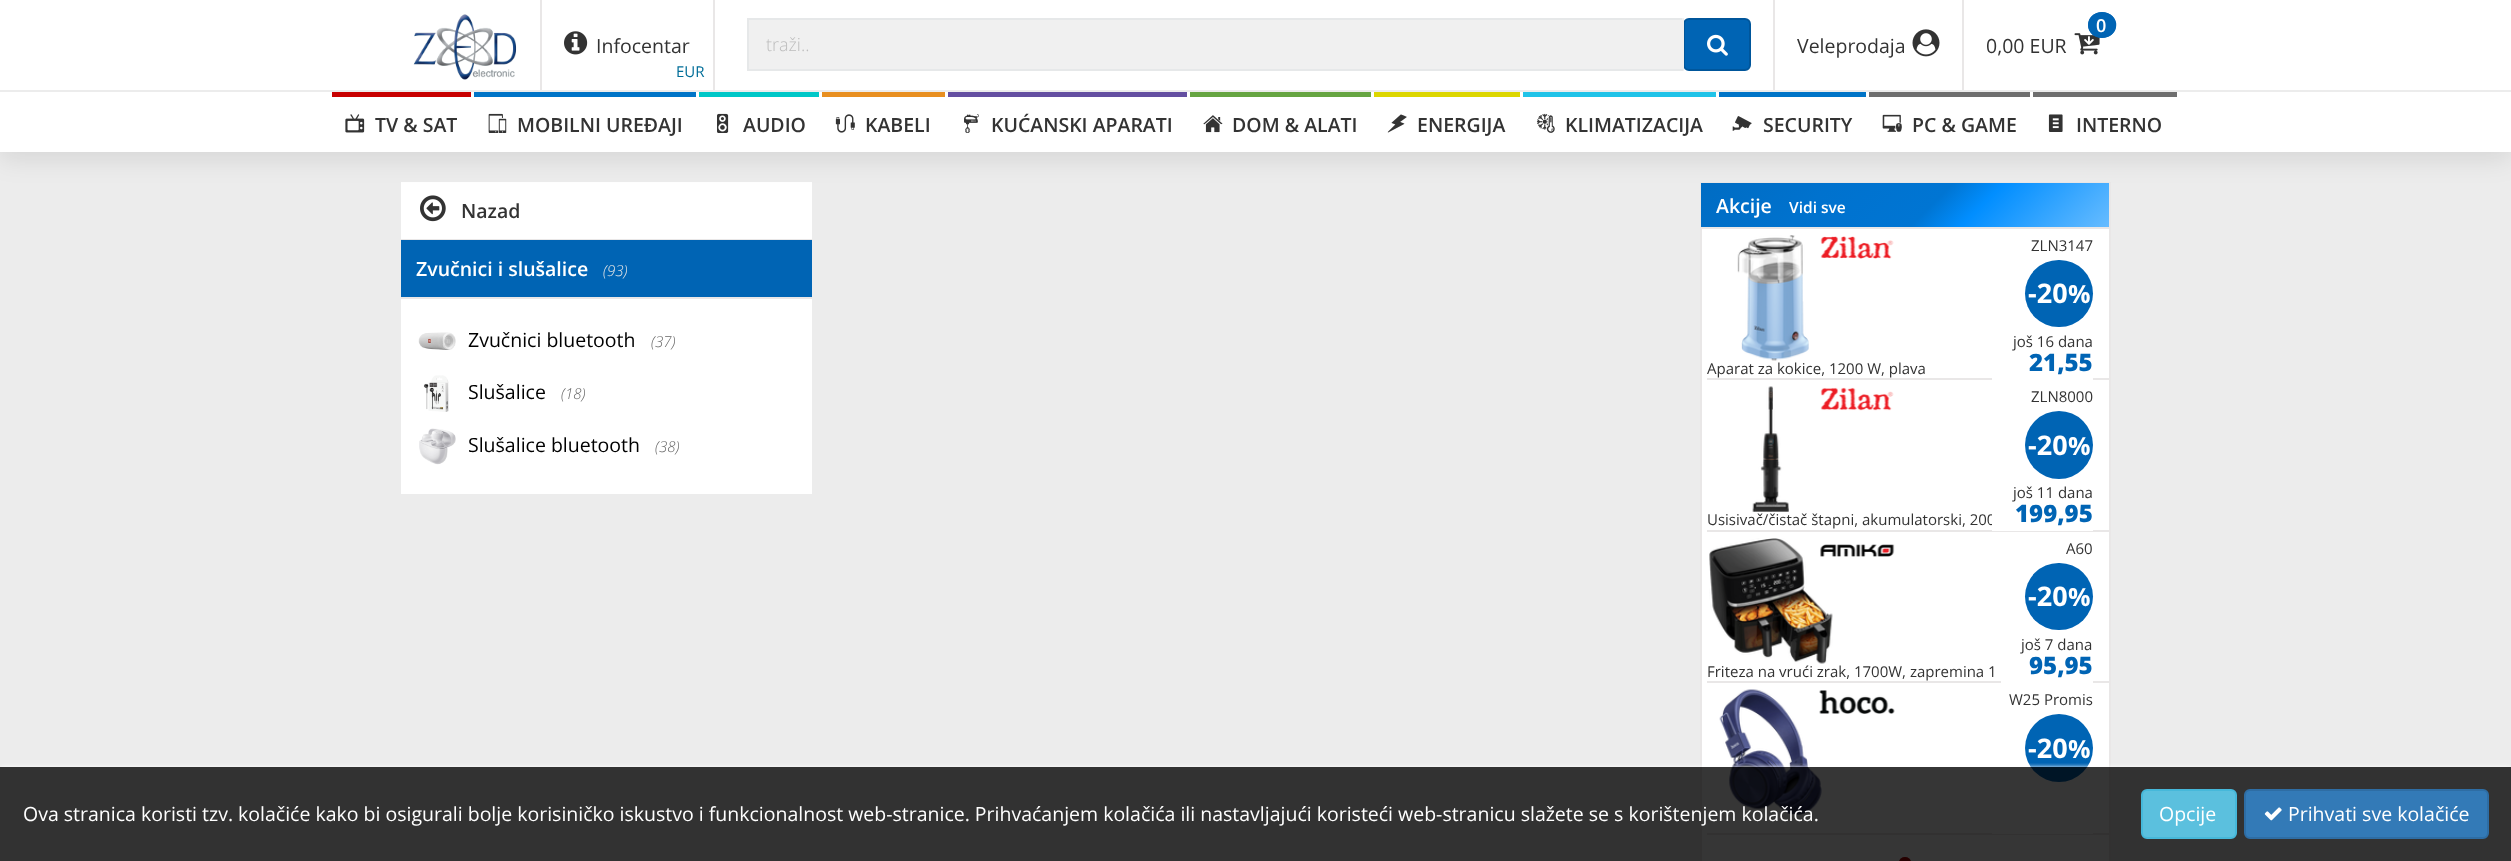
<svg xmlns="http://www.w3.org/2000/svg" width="2511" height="861">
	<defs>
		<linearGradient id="g1" gradientUnits="userSpaceOnUse" x1="1792" y1="92" x2="2018" y2="318"><stop offset="0" stop-color="#006CC3" /><stop offset="0.29" stop-color="#0072CE" /><stop offset="0.56" stop-color="#0075D3" /><stop offset="0.67" stop-color="#018EFF" /><stop offset="1" stop-color="#67BCFF" /></linearGradient>
		<clipPath id="clip1"><rect x="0" y="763" width="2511" height="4" /></clipPath>
	</defs>
	<rect width="100%" height="100%" fill="#ECECEC" />
	<rect x="401" y="182" width="411" height="312" fill="#FFFFFF" />
	<image x="420" y="195" width="26" height="27" href="assets/img17.png" />
	<rect x="1702" y="229" width="407" height="632" fill="#FFFFFF" />
	<rect x="1701" y="183" width="409" height="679" fill="none" stroke="#E9E7E7" stroke-width="2" />
	<rect x="1701" y="183" width="408" height="44" fill="url(#g1)" />
	<rect x="0" y="6" width="2511" height="152" fill="#000000" fill-opacity="0.1" filter="blur(13.5px)" />
	<rect x="0" y="0" width="2511" height="152" fill="#FFFFFF" />
	<rect x="540" y="0" width="2" height="90" fill="#E9E7E7" />
	<image x="413" y="14" width="104" height="66" href="assets/img1.png" />
	<rect x="713" y="0" width="2" height="90" fill="#E9E7E7" />
	<image x="564" y="31" width="24" height="24" href="assets/img2.png" />
	<text x="596" y="53" font-family="Open Sans" font-size="19.5" fill="#333333">Infocentar</text>
	<text x="676" y="77" font-family="Open Sans" font-size="15" fill="#006D98">EUR</text>
	<rect x="749" y="20" width="933" height="49" fill="#F0F0F0" />
	<rect x="747" y="18" width="936" height="2" fill="#E6E8E9" />
	<rect x="1684" y="19" width="66" height="51" rx="5" fill="#0064B4" stroke="#00569B" stroke-width="2" />
	<rect x="1682" y="18" width="2" height="53" fill="#F0F0F0" />
	<rect x="747" y="69" width="936" height="2" fill="#E6E8E9" />
	<rect x="747" y="18" width="2" height="53" fill="#E6E8E9" />
	<text x="766" y="51" font-family="Open Sans" font-size="18" font-weight="300" fill="#BDBDBD">traži..</text>
	<image x="1707" y="34" width="21" height="22" href="assets/img3.png" />
	<rect x="1773" y="0" width="2" height="90" fill="#E9E7E7" />
	<text x="1797" y="53" font-family="Open Sans" font-size="19.5" fill="#333333">Veleprodaja</text>
	<image x="1912" y="29" width="28" height="28" href="assets/img4.png" />
	<rect x="1962" y="0" width="2" height="90" fill="#E9E7E7" />
	<image x="2074" y="33" width="26" height="22" href="assets/img5.png" />
	<ellipse cx="2102" cy="25" rx="14" ry="13" fill="#0064B4" />
	<path d="M2102 13C2120 13 2120 37 2102 37C2084.5 37 2084.5 13 2102 13Z" fill="none" stroke="#0064B4" stroke-width="1.5" />
	<text x="2096" y="32" font-family="Open Sans" font-size="18" font-weight="600" fill="#FFFFFF">0</text>
	<text x="1986" y="53" font-family="Open Sans" font-size="19.5" fill="#333333">0,00 EUR</text>
	<rect x="0" y="90" width="2511" height="2" fill="#ECECEC" />
	<rect x="332" y="92" width="139" height="5" fill="#C70000" />
	<image x="345" y="114" width="20" height="19" href="assets/img6.png" />
	<text x="375" y="132" font-family="Open Sans" font-size="19.5" font-weight="600" fill="#333333">TV &amp; SAT</text>
	<rect x="474" y="92" width="222" height="5" fill="#0074C7" />
	<image x="488" y="113" width="19" height="20" href="assets/img7.png" />
	<text x="517" y="132" font-family="Open Sans" font-size="19.5" font-weight="600" fill="#333333">MOBILNI UREĐAJI</text>
	<rect x="699" y="92" width="120" height="5" fill="#00C7C7" />
	<image x="717" y="113" width="12" height="20" href="assets/img8.png" />
	<text x="743" y="132" font-family="Open Sans" font-size="19.5" font-weight="600" fill="#333333">AUDIO</text>
	<rect x="822" y="92" width="123" height="5" fill="#E88F20" />
	<image x="835" y="114" width="20" height="19" href="assets/img9.png" />
	<text x="865" y="132" font-family="Open Sans" font-size="19.5" font-weight="600" fill="#333333">KABELI</text>
	<rect x="948" y="92" width="239" height="5" fill="#644FA1" />
	<image x="964" y="114" width="15" height="19" href="assets/img10.png" />
	<text x="991" y="132" font-family="Open Sans" font-size="19.5" font-weight="600" fill="#333333">KUĆANSKI APARATI</text>
	<rect x="1190" y="92" width="181" height="5" fill="#66A542" />
	<image x="1203" y="115" width="20" height="18" href="assets/img11.png" />
	<text x="1232" y="132" font-family="Open Sans" font-size="19.5" font-weight="600" fill="#333333">DOM &amp; ALATI</text>
	<rect x="1374" y="92" width="146" height="5" fill="#DCD600" />
	<image x="1387" y="114" width="20" height="19" href="assets/img12.png" />
	<text x="1417" y="132" font-family="Open Sans" font-size="19.5" font-weight="600" fill="#333333">ENERGIJA</text>
	<rect x="1523" y="92" width="193" height="5" fill="#20C3E8" />
	<image x="1536" y="113" width="19" height="20" href="assets/img13.png" />
	<text x="1565" y="132" font-family="Open Sans" font-size="19.5" font-weight="600" fill="#333333">KLIMATIZACIJA</text>
	<rect x="1719" y="92" width="147" height="5" fill="#0074C7" />
	<image x="1732" y="116" width="20" height="15" href="assets/img14.png" />
	<text x="1763" y="132" font-family="Open Sans" font-size="19.5" font-weight="600" fill="#333333">SECURITY</text>
	<rect x="1869" y="92" width="161" height="5" fill="#6F6F6F" />
	<image x="1882" y="114" width="20" height="18" href="assets/img15.png" />
	<text x="1912" y="132" font-family="Open Sans" font-size="19.5" font-weight="600" fill="#333333">PC &amp; GAME</text>
	<rect x="2033" y="92" width="144" height="5" fill="#6F6F6F" />
	<image x="2048" y="114" width="15" height="18" href="assets/img16.png" />
	<text x="2076" y="132" font-family="Open Sans" font-size="19.5" font-weight="600" fill="#333333">INTERNO</text>
	<rect x="401" y="239" width="411" height="1" fill="#E9E7E7" />
	<text x="461" y="218" font-family="Open Sans" font-size="19.5" font-weight="600" fill="#333333">Nazad</text>
	<rect x="401" y="240" width="411" height="57" fill="#0064B4" />
	<rect x="401" y="297" width="411" height="2" fill="#E9E7E7" />
	<text x="416" y="276" font-family="Open Sans" font-size="19.5" font-weight="600" fill="#FFFFFF">Zvučnici i slušalice</text>
	<text x="603" y="276" font-family="Open Sans" font-size="15" font-weight="300" font-style="italic" fill="#E6E6E6">(93)</text>
	<image x="418" y="332" width="38" height="18" href="assets/img18.png" />
	<text x="468" y="347" font-family="Open Sans" font-size="19.5" fill="#000000">Zvučnici bluetooth</text>
	<text x="651" y="347" font-family="Open Sans" font-size="15" font-weight="300" font-style="italic" fill="#676767">(37)</text>
	<image x="423" y="375" width="26" height="37" href="assets/img19.png" />
	<text x="468" y="399" font-family="Open Sans" font-size="19.5" fill="#000000">Slušalice</text>
	<text x="561" y="399" font-family="Open Sans" font-size="15" font-weight="300" font-style="italic" fill="#676767">(18)</text>
	<image x="419" y="428" width="37" height="37" href="assets/img20.png" />
	<text x="468" y="452" font-family="Open Sans" font-size="19.5" fill="#000000">Slušalice bluetooth</text>
	<text x="655" y="452" font-family="Open Sans" font-size="15" font-weight="300" font-style="italic" fill="#676767">(38)</text>
	<rect x="1701" y="227" width="408" height="2" fill="#E9E7E7" />
	<text x="1716" y="213" font-family="Open Sans" font-size="19.5" font-weight="600" fill="#FFFFFF">Akcije</text>
	<text x="1789" y="213" font-family="Open Sans" font-size="15.5" font-weight="600" fill="#FFFFFF">Vidi sve</text>
	<rect x="1707" y="378" width="402" height="2" fill="#E9E7E7" />
	<image x="1737" y="235" width="72" height="126" href="assets/img21.png" />
	<image x="1820" y="236" width="74" height="23" href="assets/img22.png" />
	<text x="2031" y="251" font-family="Open Sans" font-size="15" fill="#333333">ZLN3147</text>
	<rect x="2025" y="260" width="68" height="67" rx="33.5" fill="#0064B4" />
	<text x="2028" y="303" font-family="Open Sans" font-size="27" font-weight="700" fill="#FFFFFF">-20</text>
	<text x="2068" y="303" font-family="Open Sans" font-size="25" font-weight="700" fill="#FFFFFF">%</text>
	<text x="1707" y="374" font-family="Open Sans" font-size="15" fill="#333333">Aparat za kokice, 1200 W, plava</text>
	<rect x="1992" y="378" width="101" height="2" fill="#FFFFFF" />
	<text x="2013" y="347" font-family="Open Sans" font-size="15" fill="#333333">još 16 dana</text>
	<text x="2029" y="371" font-family="Open Sans" font-size="24" font-weight="800" fill="#0064B4">21,55</text>
	<rect x="1707" y="530" width="402" height="2" fill="#E9E7E7" />
	<image x="1752" y="386" width="37" height="126" href="assets/img23.png" />
	<image x="1820" y="387" width="74" height="24" href="assets/img24.png" />
	<text x="2031" y="402" font-family="Open Sans" font-size="15" fill="#333333">ZLN8000</text>
	<circle cx="2059" cy="445" r="34" fill="#0064B4" />
	<text x="2028" y="455" font-family="Open Sans" font-size="27" font-weight="700" fill="#FFFFFF">-20</text>
	<text x="2068" y="455" font-family="Open Sans" font-size="25" font-weight="700" fill="#FFFFFF">%</text>
	<text x="1707" y="525" font-family="Open Sans" font-size="15" fill="#333333">Usisivač/čistač štapni, akumulatorski, 200</text>
	<rect x="1992" y="514" width="101" height="17" fill="#FFFFFF" />
	<text x="2013" y="498" font-family="Open Sans" font-size="15" fill="#333333">još 11 dana</text>
	<text x="2015" y="522" font-family="Open Sans" font-size="24" font-weight="800" fill="#0064B4">199,95</text>
	<rect x="1707" y="681" width="402" height="2" fill="#E9E7E7" />
	<image x="1709" y="538" width="124" height="126" href="assets/img25.png" />
	<image x="1820" y="544" width="75" height="13" href="assets/img26.png" />
	<text x="2066" y="554" font-family="Open Sans" font-size="15" fill="#333333">A60</text>
	<rect x="2025" y="563" width="68" height="67" rx="33.5" fill="#0064B4" />
	<text x="2028" y="606" font-family="Open Sans" font-size="27" font-weight="700" fill="#FFFFFF">-20</text>
	<text x="2068" y="606" font-family="Open Sans" font-size="25" font-weight="700" fill="#FFFFFF">%</text>
	<text x="1707" y="677" font-family="Open Sans" font-size="15" fill="#333333">Friteza na vrući zrak, 1700W, zapremina 1</text>
	<rect x="2001" y="681" width="92" height="2" fill="#FFFFFF" />
	<text x="2021" y="650" font-family="Open Sans" font-size="15" fill="#333333">još 7 dana</text>
	<text x="2029" y="674" font-family="Open Sans" font-size="24" font-weight="800" fill="#0064B4">95,95</text>
	<rect x="1707" y="833" width="402" height="2" fill="#E9E7E7" />
	<image x="1719" y="689" width="103" height="126" href="assets/img27.png" />
	<image x="1819" y="690" width="76" height="24" href="assets/img28.png" />
	<text x="2009" y="705" font-family="Open Sans" font-size="15" fill="#333333">W25 Promis</text>
	<circle cx="2059" cy="748" r="34" fill="#0064B4" />
	<text x="2028" y="758" font-family="Open Sans" font-size="27" font-weight="700" fill="#FFFFFF">-20</text>
	<text x="2068" y="758" font-family="Open Sans" font-size="25" font-weight="700" fill="#FFFFFF">%</text>
	<rect x="1992" y="833" width="101" height="1" fill="#FFFFFF" />
	<rect x="1899" y="857" width="12" height="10" rx="6" fill="#AF0000" />
	<g clip-path="url(#clip1)">
		<rect x="0" y="767" width="2511" height="94" fill="#FFFFFF" filter="blur(2px)" />
	</g>
	<rect x="0" y="767" width="2511" height="94" fill="#000000" fill-opacity="0.79" />
	<text x="23" y="821" font-family="Open Sans" font-size="19.5" fill="#FFFFFF">Ova stranica koristi tzv. kolačiće kako bi osigurali bolje korisiničko iskustvo i funkcionalnost web-stranice. Prihvaćanjem kolačića ili nastavljajući koristeći web-stranicu slažete se s korištenjem kolačića.</text>
	<rect x="2142" y="790" width="94" height="48" rx="5" fill="#5BC0DE" stroke="#46B8DA" stroke-width="2" />
	<text x="2159" y="821" font-family="Open Sans" font-size="19.5" fill="#FFFFFF">Opcije</text>
	<rect x="2245" y="790" width="243" height="48" rx="5" fill="#337AB7" stroke="#2E6DA4" stroke-width="2" />
	<image x="2264" y="807" width="18" height="14" href="assets/img29.png" />
	<text x="2288" y="821" font-family="Open Sans" font-size="19.5" fill="#FFFFFF">Prihvati sve kolačiće</text>
</svg>
